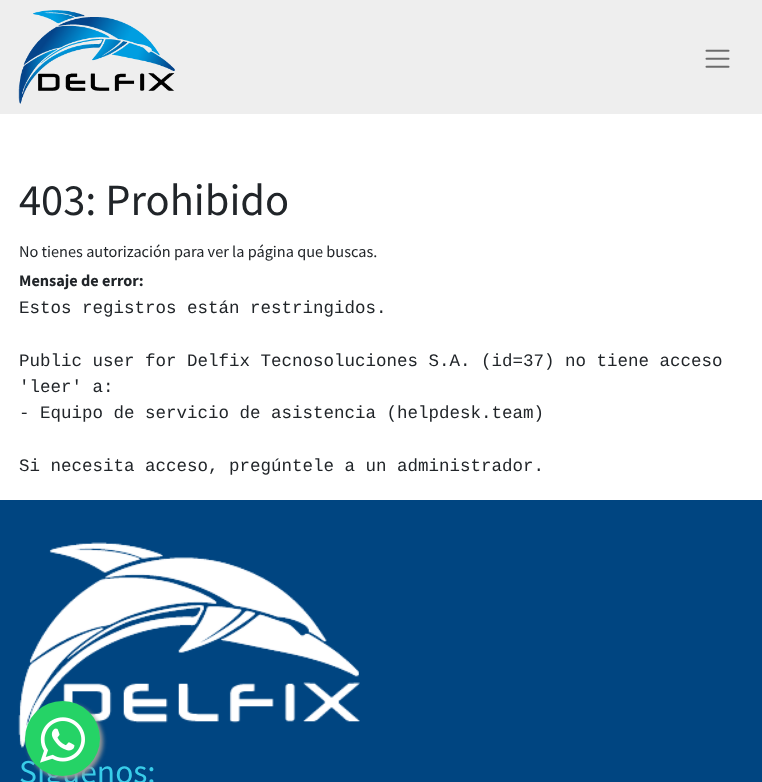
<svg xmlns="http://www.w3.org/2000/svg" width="762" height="782">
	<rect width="100%" height="100%" fill="#FFFFFF" />
	<rect x="0" y="0" width="762" height="114" fill="#EEEEEE" />
	<image x="18" y="10" width="157" height="94" href="assets/img1.png" />
	<image x="705" y="49" width="25" height="19" href="assets/img2.png" />
	<text x="19" y="215" font-family="Source Sans Pro" font-size="44.5" fill="#212529">403: Prohibido</text>
	<text x="19" y="257" font-family="Source Sans Pro" font-size="16.25" fill="#212529">No tienes autorización para ver la página que buscas.</text>
	<text x="19" y="286" font-family="Source Sans Pro" font-size="16.25" font-weight="700" fill="#212529">Mensaje de error:</text>
	<g font-family="Liberation Mono" font-size="17.5" fill="#212529">
		<text x="19" y="313">Estos registros están restringidos.</text>
		<text x="19" y="366">Public user for Delfix Tecnosoluciones S.A. (id=37) no tiene acceso</text>
		<text x="19" y="392">'leer' a:</text>
		<text x="19" y="418">- Equipo de servicio de asistencia (helpdesk.team)</text>
		<text x="19" y="471">Si necesita acceso, pregúntele a un administrador.</text>
	</g>
	<rect x="0" y="500" width="762" height="282" fill="#004581" />
	<image x="18" y="542" width="342" height="206" href="assets/img3.png" />
	<text x="19" y="783" font-family="Source Sans Pro" font-size="33.5" fill="#38CDE9">Síguenos:</text>
	<rect x="28" y="704" width="75" height="75" rx="37.5" fill="#999999" filter="blur(2px)" />
	<circle cx="62.5" cy="738.5" r="37.5" fill="#25D366" />
	<image x="40" y="717" width="45" height="46" href="assets/img4.png" />
</svg>
